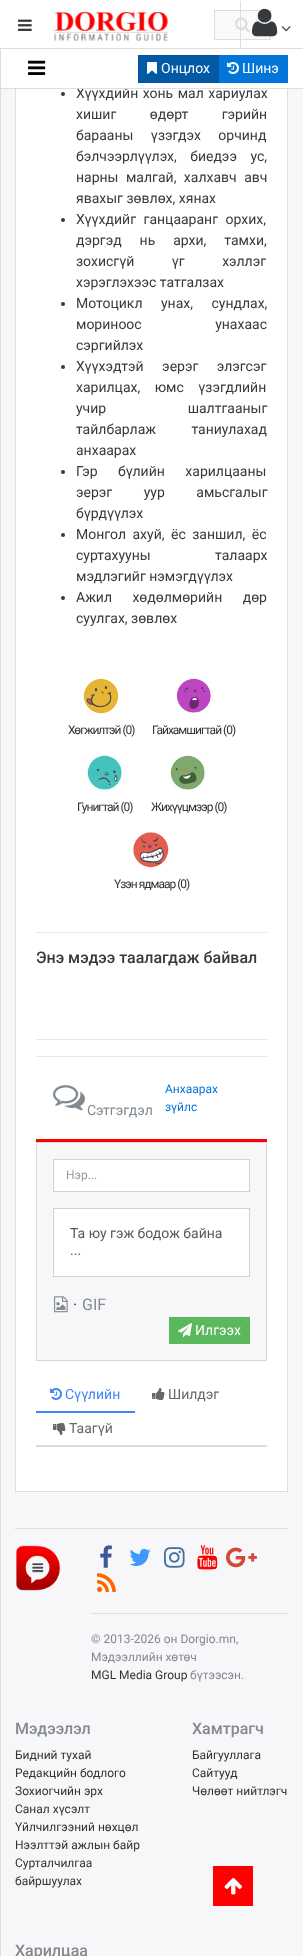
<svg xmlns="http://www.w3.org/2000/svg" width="303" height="1956">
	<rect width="100%" height="100%" fill="#F7F7F9" />
	<rect x="16" y="89" width="271" height="1402" fill="#FFFFFF" />
	<rect x="15.5" y="-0.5" width="272" height="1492" fill="none" stroke="#DFDFDF" />
	<rect x="0" y="0" width="303" height="48" fill="#FFFFFF" />
	<rect x="0" y="48" width="303" height="1" fill="#DDDDDD" />
	<image x="18" y="19" width="14" height="12" href="assets/img1.png" />
	<image x="54" y="11" width="114" height="31" href="assets/img2.png" />
	<rect x="214.5" y="10.5" width="56" height="29" fill="#FAFAFA" stroke="#DDDDDD" />
	<image x="235" y="17" width="15" height="16" href="assets/img5.png" />
	<rect x="240" y="1" width="1" height="48" fill="#DDDDDD" />
	<image x="252" y="8" width="26" height="29" href="assets/img3.png" />
	<image x="281" y="26" width="10" height="6" href="assets/img4.png" />
	<text x="76" y="98" word-spacing="1" font-family="Roboto" font-size="14" fill="#373A3C">Хүүхдийн хонь мал хариулах</text>
	<rect x="1" y="49" width="302" height="39" fill="#FFFFFF" />
	<rect x="0" y="88" width="303" height="1" fill="#DDDDDD" />
	<image x="28" y="60" width="18" height="15" href="assets/img6.png" />
	<rect x="138.5" y="55.5" width="80" height="27" fill="#025AA5" stroke="#01549B" />
	<image x="147" y="62" width="10" height="12" href="assets/img7.png" />
	<text x="161" y="73" font-family="Roboto" font-size="14" fill="#FFFFFF">Онцлох</text>
	<rect x="219" y="55" width="69" height="28" fill="#0275D8" />
	<image x="227" y="62" width="12" height="12" href="assets/img8.png" />
	<text x="242" y="73" font-family="Roboto" font-size="14" fill="#FFFFFF">Шинэ</text>
	<rect x="0" y="49" width="1" height="1907" fill="#DDDDDD" />
	<circle cx="63" cy="94" r="2" fill="#373A3C" />
	<g font-family="Roboto" font-size="14" fill="#373A3C">
		<text x="76" y="119" word-spacing="30">хишиг өдөрт гэрийн</text>
		<text x="76" y="140" word-spacing="14">барааны үзэгдэх орчинд</text>
		<text x="76" y="161" word-spacing="10">бэлчээрлүүлэх, биедээ ус,</text>
		<text x="76" y="182" word-spacing="4">нарны малгай, халхавч авч</text>
		<text x="76" y="203">явахыг зөвлөх, хянах</text>
	</g>
	<circle cx="63" cy="220" r="2" fill="#373A3C" />
	<g font-family="Roboto" font-size="14" fill="#373A3C">
		<text x="76" y="224" word-spacing="4">Хүүхдийг ганцааранг орхих,</text>
		<text x="76" y="245" word-spacing="14.5">дэргэд нь архи, тамхи,</text>
		<text x="76" y="266" word-spacing="34">зохисгүй үг хэллэг</text>
		<text x="76" y="287">хэрэглэхээс татгалзах</text>
	</g>
	<circle cx="63" cy="304" r="2" fill="#373A3C" />
	<g font-family="Roboto" font-size="14" fill="#373A3C">
		<text x="76" y="308" word-spacing="15">Мотоцикл унах, сундлах,</text>
		<text x="76" y="329" word-spacing="70">мориноос унахаас</text>
		<text x="76" y="350">сэргийлэх</text>
	</g>
	<circle cx="63" cy="367" r="2" fill="#373A3C" />
	<g font-family="Roboto" font-size="14" fill="#373A3C">
		<text x="76" y="371" word-spacing="15">Хүүхэдтэй эерэг элэгсэг</text>
		<text x="76" y="392" word-spacing="11">харилцах, юмс үзэгдлийн</text>
		<text x="76" y="413" word-spacing="78">учир шалтгааныг</text>
		<text x="76" y="434" word-spacing="32">тайлбарлаж таниулахад</text>
		<text x="76" y="455">анхаарах</text>
	</g>
	<circle cx="63" cy="472" r="2" fill="#373A3C" />
	<g font-family="Roboto" font-size="14" fill="#373A3C">
		<text x="76" y="476" word-spacing="17">Гэр бүлийн харилцааны</text>
		<text x="76" y="497" word-spacing="28">эерэг уур амьсгалыг</text>
		<text x="76" y="518">бүрдүүлэх</text>
	</g>
	<circle cx="63" cy="535" r="2" fill="#373A3C" />
	<g font-family="Roboto" font-size="14" fill="#373A3C">
		<text x="76" y="539" word-spacing="3">Монгол ахуй, ёс заншил, ёс</text>
		<text x="76" y="560" word-spacing="61">суртахууны талаарх</text>
		<text x="76" y="581">мэдлэгийг нэмэгдүүлэх</text>
	</g>
	<circle cx="63" cy="598" r="2" fill="#373A3C" />
	<g font-family="Roboto" font-size="14" fill="#373A3C">
		<text x="76" y="602" word-spacing="17">Ажил хөдөлмөрийн дөр</text>
		<text x="76" y="623">суулгах, зөвлөх</text>
	</g>
	<image x="83" y="678" width="38" height="37" href="assets/img9.png" />
	<text x="68" y="734" font-family="Roboto" font-size="12" letter-spacing="-1" fill="#333333">Хөгжилтэй (0)</text>
	<image x="176" y="678" width="37" height="37" href="assets/img10.png" />
	<text x="152" y="734" font-family="Roboto" font-size="12" letter-spacing="-1" fill="#333333">Гайхамшигтай (0)</text>
	<image x="87" y="755" width="37" height="37" href="assets/img11.png" />
	<text x="77" y="811" font-family="Roboto" font-size="12" letter-spacing="-1" fill="#333333">Гунигтай (0)</text>
	<image x="170" y="755" width="37" height="37" href="assets/img12.png" />
	<text x="151" y="811" font-family="Roboto" font-size="12" letter-spacing="-1" fill="#333333">Жихүүцмээр (0)</text>
	<image x="133" y="832" width="37" height="37" href="assets/img13.png" />
	<text x="114" y="888" font-family="Roboto" font-size="12" letter-spacing="-1" fill="#333333">Үзэн ядмаар (0)</text>
	<rect x="36" y="932" width="231" height="1" fill="#E6E6E6" />
	<text x="36" y="963" font-family="Roboto" font-size="16" font-weight="500" fill="#373A3C">Энэ мэдээ таалагдаж байвал</text>
	<rect x="36" y="1039" width="231" height="1" fill="#E6E6E6" />
	<rect x="36" y="1056" width="231" height="1" fill="#E6E6E6" />
	<image x="53" y="1085" width="32" height="26" href="assets/img14.png" />
	<text x="87" y="1115" font-family="Roboto" font-size="14" fill="#818A91">Сэтгэгдэл</text>
	<g font-family="Roboto" font-size="12" fill="#0275D8">
		<text x="165" y="1093">Анхаарах</text>
		<text x="165" y="1111">зүйлс</text>
	</g>
	<rect x="36" y="1139" width="231" height="3" fill="#FF0000" />
	<rect x="36.5" y="1142.5" width="230" height="218" fill="#F7F7F9" stroke="#D8D8DA" />
	<rect x="53.5" y="1159.5" width="196" height="32" fill="#FFFFFF" stroke="#D2D2D4" />
	<text x="66" y="1179" font-family="Roboto" font-size="12" fill="#999999">Нэр...</text>
	<rect x="53.5" y="1208.5" width="196" height="68" fill="#FFFFFF" stroke="#D2D2D4" />
	<g font-family="Roboto" font-size="14" fill="#55595C">
		<text x="70" y="1238">Та юу гэж бодож байна</text>
		<text x="70" y="1255">...</text>
	</g>
	<image x="54" y="1296" width="14" height="17" href="assets/img15.png" />
	<text x="73" y="1310" font-family="Roboto" font-size="16" fill="#373A3C">·</text>
	<text x="82" y="1310" font-family="Roboto" font-size="16" fill="#818A91">GIF</text>
	<rect x="169" y="1317" width="81" height="27" fill="#5CB85C" />
	<image x="178" y="1323" width="14" height="14" href="assets/img16.png" />
	<text x="195" y="1335" font-family="Roboto" font-size="14" fill="#FFFFFF">Илгээх</text>
	<rect x="36" y="1445" width="231" height="2" fill="#DDDDDD" />
	<image x="50" y="1388" width="12" height="12" href="assets/img17.png" />
	<text x="65" y="1399" font-family="Roboto" font-size="14" fill="#4285F4">Сүүлийн</text>
	<rect x="36" y="1411" width="99" height="2" fill="#4285F4" />
	<image x="152" y="1388" width="13" height="12" href="assets/img18.png" />
	<text x="168" y="1399" font-family="Roboto" font-size="14" fill="#666666">Шилдэг</text>
	<image x="53" y="1423" width="13" height="12" href="assets/img19.png" />
	<text x="69" y="1433" font-family="Roboto" font-size="14" fill="#666666">Таагүй</text>
	<rect x="15" y="1528" width="273" height="1" fill="#DEDEE0" />
	<image x="16" y="1545" width="45" height="46" href="assets/img20.png" />
	<image x="100" y="1545" width="12" height="23" href="assets/img21.png" />
	<image x="129" y="1548" width="22" height="18" href="assets/img22.png" />
	<image x="164" y="1547" width="21" height="21" href="assets/img23.png" />
	<image x="197" y="1545" width="21" height="25" href="assets/img24.png" />
	<image x="226" y="1547" width="31" height="21" href="assets/img25.png" />
	<image x="97" y="1573" width="19" height="19" href="assets/img26.png" />
	<rect x="91" y="1613" width="197" height="1" fill="#DEDEE0" />
	<g font-family="Roboto" font-size="12" fill="#818A91">
		<text x="91" y="1643">© 2013-2026 он Dorgio.mn,</text>
		<text x="91" y="1661">Мэдээллийн хөтөч</text>
	</g>
	<text x="91" y="1679" font-family="Roboto" font-size="12" fill="#333333">MGL Media Group</text>
	<text x="190" y="1679" font-family="Roboto" font-size="12" fill="#818A91">бүтээсэн.</text>
	<text x="15" y="1734" font-family="Roboto" font-size="16" font-weight="500" fill="#818A91">Мэдээлэл</text>
	<g font-family="Roboto" font-size="12" fill="#333333">
		<text x="15" y="1759">Бидний тухай</text>
		<text x="15" y="1777">Редакцийн бодлого</text>
		<text x="15" y="1795">Зохиогчийн эрх</text>
		<text x="15" y="1813">Санал хүсэлт</text>
		<text x="15" y="1831">Үйлчилгээний нөхцөл</text>
		<text x="15" y="1849">Нээлттэй ажлын байр</text>
		<text x="15" y="1867">Сурталчилгаа</text>
		<text x="15" y="1885">байршуулах</text>
	</g>
	<text x="192" y="1734" font-family="Roboto" font-size="16" font-weight="500" fill="#818A91">Хамтрагч</text>
	<g font-family="Roboto" font-size="12" fill="#333333">
		<text x="192" y="1759">Байгууллага</text>
		<text x="192" y="1777">Сайтууд</text>
		<text x="192" y="1795">Чөлөөт нийтлэгч</text>
	</g>
	<text x="15" y="1956" font-family="Roboto" font-size="16" font-weight="500" fill="#818A91">Харилцаа</text>
	<rect x="213" y="1866" width="40" height="40" fill="#FF0000" />
	<image x="224" y="1878" width="18" height="17" href="assets/img27.png" />
</svg>
